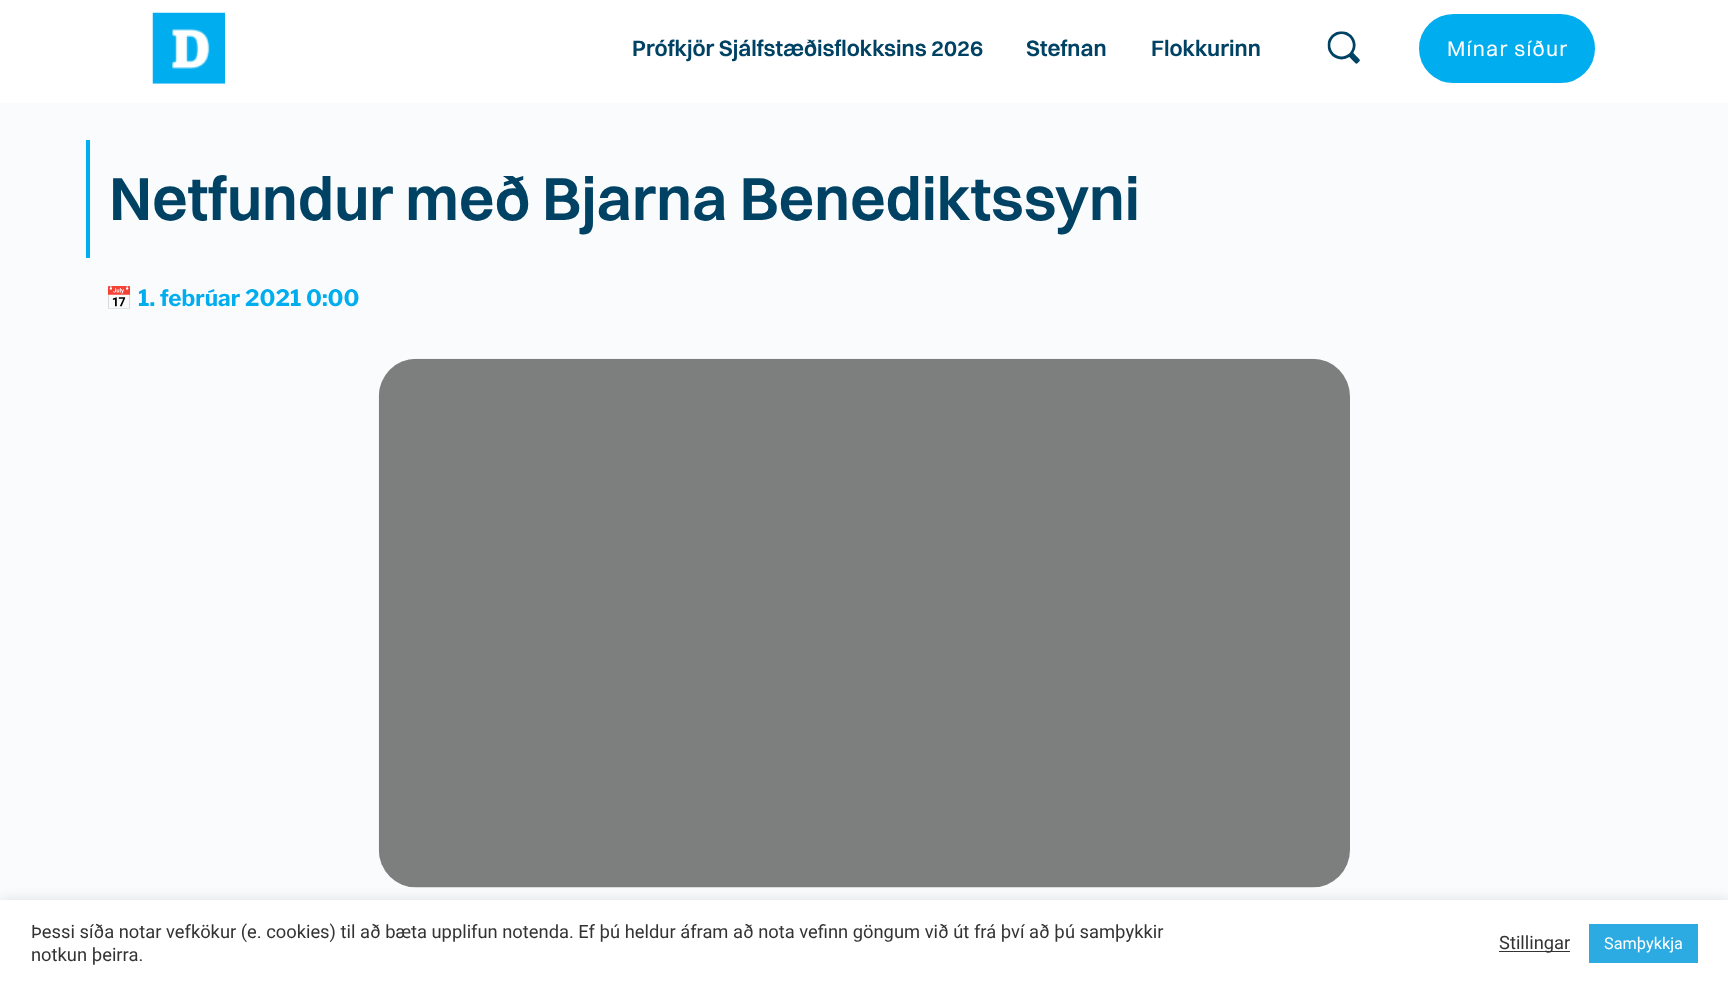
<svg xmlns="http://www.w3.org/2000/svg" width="1728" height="986">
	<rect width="100%" height="100%" fill="#FAFBFC" />
	<rect x="0" y="0" width="1728" height="103" fill="#FFFFFF" />
	<image x="152" y="12" width="73" height="72" href="assets/img1.png" />
	<g font-family="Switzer" font-size="22.5" font-weight="600" fill="#004264">
		<text x="632" y="56">Prófkjör Sjálfstæðisflokksins 2026</text>
		<text x="1026" y="56">Stefnan</text>
		<text x="1151" y="56">Flokkurinn</text>
	</g>
	<image x="1327" y="31" width="33" height="33" href="assets/img2.png" />
	<rect x="1420.5" y="15.5" width="173" height="66" rx="33" fill="#00ADEF" stroke="#00ADEF" stroke-width="3" />
	<text x="1447" y="56" font-family="Switzer" font-size="21.25" letter-spacing="1.25" fill="#FFFFFF">Mínar síður</text>
	<rect x="86" y="140" width="4" height="118" fill="#00ADEF" />
	<text x="109" y="220" font-family="Switzer" font-size="61.25" font-weight="600" fill="#004264">Netfundur með Bjarna Benediktssyni</text>
	<text x="105" y="306" font-family="Noto Color Emoji" font-size="22.5" font-weight="700" fill="#005C87">📅</text>
	<text x="138" y="306" font-family="Libre Franklin" font-size="22.5" font-weight="100" fill="#00ADEF">1. febrúar 2021 0:00</text>
	<image x="378" y="358" width="972" height="530" href="assets/img3.png" />
	<rect x="0" y="899" width="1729" height="86" fill="#ACABAB" fill-opacity="0.3" filter="blur(6px)" />
	<rect x="0" y="900" width="1728" height="86" fill="#FFFFFF" />
	<g font-family="Roboto" font-size="18.33" fill="#333333">
		<text x="31" y="938">Þessi síða notar vefkökur (e. cookies) til að bæta upplifun notenda. Ef þú heldur áfram að nota vefinn göngum við út frá því að þú samþykkir</text>
		<text x="31" y="961">notkun þeirra.</text>
	</g>
	<rect x="1499" y="951" width="71" height="1" fill="#333333" />
	<text x="1499" y="949" font-family="Roboto" font-size="18.33" fill="#333333">Stillingar</text>
	<rect x="1589" y="924" width="109" height="39" fill="#2BABE2" />
	<text x="1604" y="949" font-family="Roboto" font-size="16.25" fill="#FFFFFF">Samþykkja</text>
</svg>
